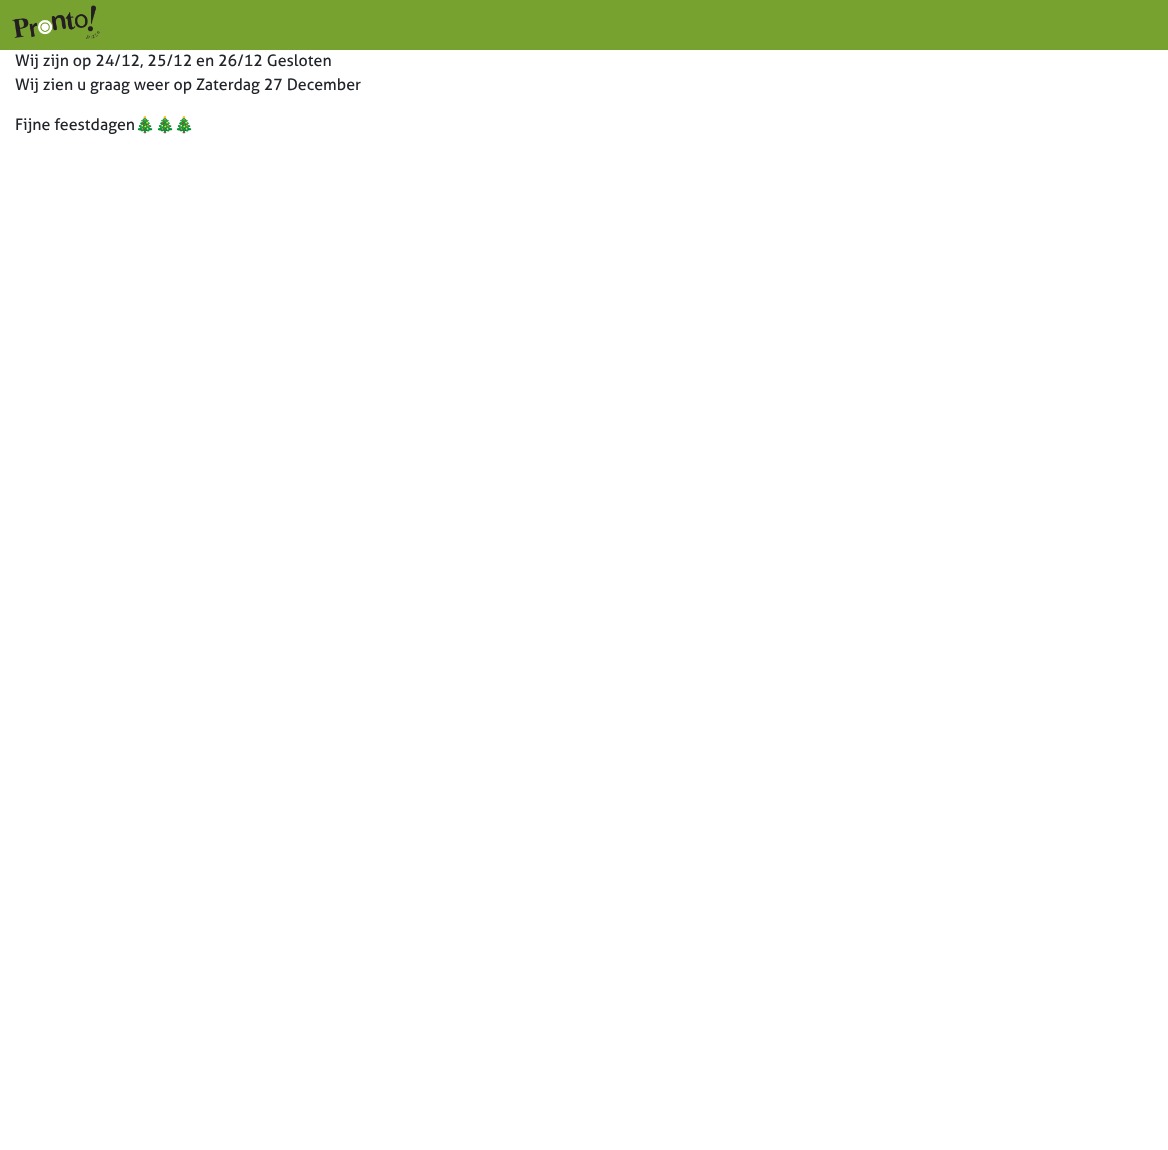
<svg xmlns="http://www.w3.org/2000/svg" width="1168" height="1150">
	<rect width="100%" height="100%" fill="#FFFFFF" />
	<rect x="0" y="0" width="1168" height="50" fill="#78A22F" />
	<image x="12" y="5" width="88" height="34" href="assets/img1.png" />
	<g font-family="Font" font-size="16" fill="#212529">
		<text x="15" y="66">Wij zijn op 24/12, 25/12 en 26/12 Gesloten</text>
		<text x="15" y="90">Wij zien u graag weer op Zaterdag 27 December</text>
		<text x="15" y="130">Fijne feestdagen</text>
	</g>
	<text x="135" y="130" font-family="Noto Color Emoji" font-size="16" fill="#212529">🎄🎄🎄</text>
</svg>
